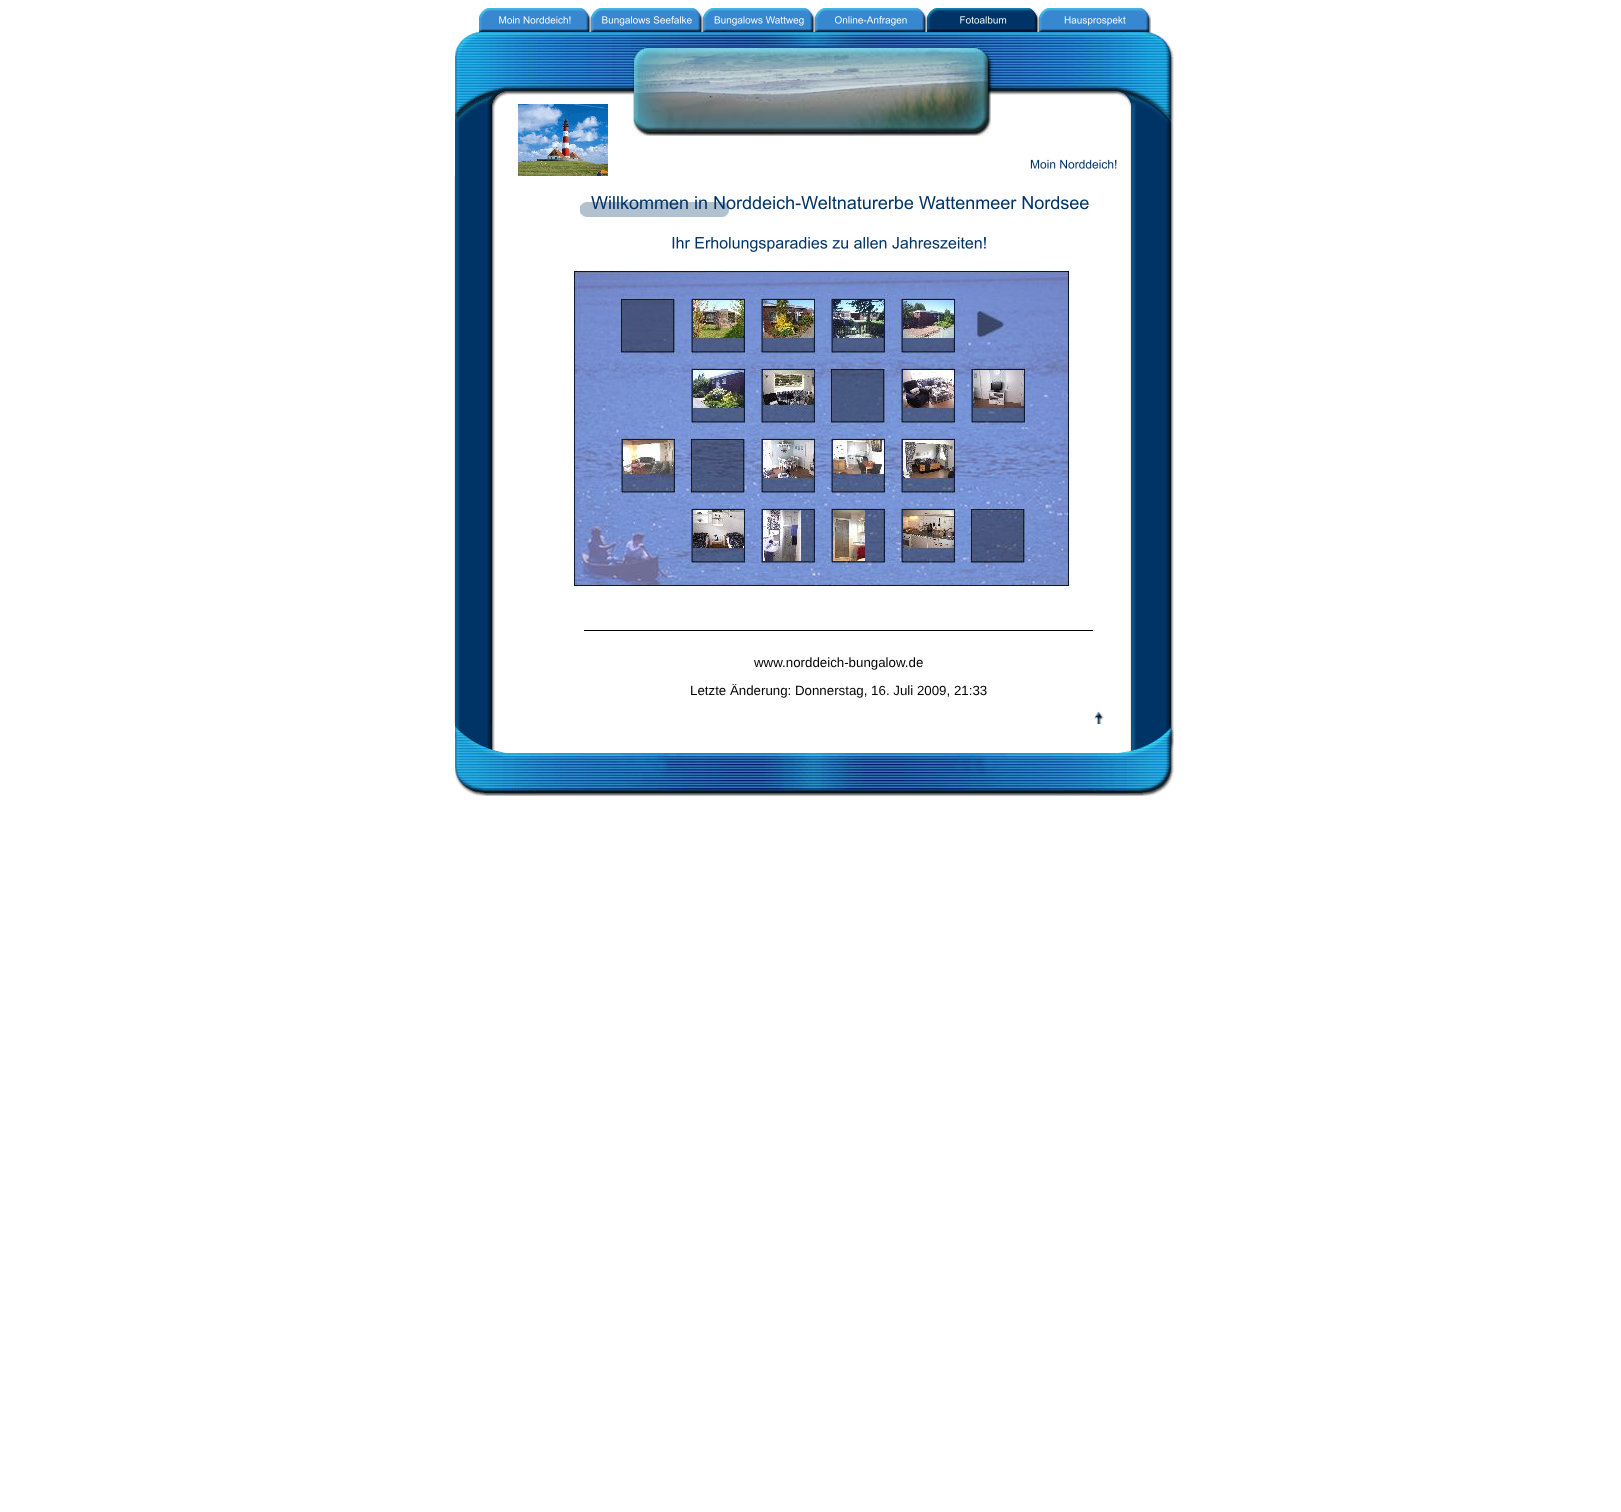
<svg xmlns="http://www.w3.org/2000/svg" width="1621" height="1512">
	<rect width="100%" height="100%" fill="#FFFFFF" />
	<image x="479" y="8" width="112" height="24" href="assets/img1.png" />
	<image x="591" y="8" width="112" height="24" href="assets/img2.png" />
	<image x="703" y="8" width="112" height="24" href="assets/img3.png" />
	<image x="815" y="8" width="112" height="24" href="assets/img4.png" />
	<image x="927" y="8" width="112" height="24" href="assets/img5.png" />
	<image x="1039" y="8" width="112" height="24" href="assets/img6.png" />
	<image x="455" y="32" width="176" height="72" href="assets/img7.png" />
	<image x="631" y="32" width="360" height="104" href="assets/img8.png" />
	<image x="991" y="32" width="183" height="72" href="assets/img9.png" />
	<image x="1129" y="104" width="45" height="32" href="assets/img10.png" />
	<image x="1030" y="159" width="87" height="10" href="assets/img11.png" />
	<image x="1130" y="136" width="44" height="40" href="assets/img12.png" />
	<image x="455" y="122" width="40" height="54" href="assets/img13.png" />
	<image x="455" y="104" width="41" height="18" href="assets/img14.png" />
	<image x="518" y="104" width="90" height="72" href="assets/img15.png" />
	<image x="454" y="176" width="41" height="548" href="assets/img16.png" />
	<image x="580" y="196" width="509" height="21" href="assets/img17.png" />
	<image x="672" y="237" width="314" height="15" href="assets/img18.png" />
	<image x="571" y="269" width="500" height="320" href="assets/img19.png" />
	<image x="693" y="300" width="51" height="51" href="assets/img20.png" />
	<image x="763" y="300" width="51" height="51" href="assets/img21.png" />
	<image x="833" y="300" width="51" height="51" href="assets/img22.png" />
	<image x="903" y="300" width="51" height="51" href="assets/img23.png" />
	<image x="976" y="311" width="28" height="27" href="assets/img24.png" />
	<image x="693" y="370" width="51" height="51" href="assets/img25.png" />
	<image x="763" y="370" width="51" height="51" href="assets/img26.png" />
	<image x="903" y="370" width="51" height="51" href="assets/img27.png" />
	<image x="973" y="370" width="51" height="51" href="assets/img28.png" />
	<image x="623" y="440" width="51" height="51" href="assets/img29.png" />
	<image x="763" y="440" width="51" height="51" href="assets/img30.png" />
	<image x="833" y="440" width="51" height="51" href="assets/img31.png" />
	<image x="903" y="440" width="51" height="51" href="assets/img32.png" />
	<image x="693" y="510" width="51" height="51" href="assets/img33.png" />
	<image x="763" y="510" width="51" height="51" href="assets/img34.png" />
	<image x="833" y="510" width="51" height="51" href="assets/img35.png" />
	<image x="903" y="510" width="51" height="51" href="assets/img36.png" />
	<rect x="584" y="630" width="509" height="1" fill="#000000" />
	<g font-family="Liberation Sans" font-size="13.3" fill="#000000">
		<text x="754" y="667">www.norddeich-bungalow.de</text>
		<text x="690" y="695">Letzte Änderung: Donnerstag, 16. Juli 2009, 21:33</text>
	</g>
	<image x="1094" y="712" width="10" height="12" href="assets/img37.png" />
	<image x="1130" y="176" width="44" height="548" href="assets/img38.png" />
	<image x="455" y="724" width="48" height="72" href="assets/img39.png" />
	<image x="503" y="751" width="624" height="45" href="assets/img40.png" />
	<image x="1127" y="724" width="47" height="72" href="assets/img41.png" />
</svg>
